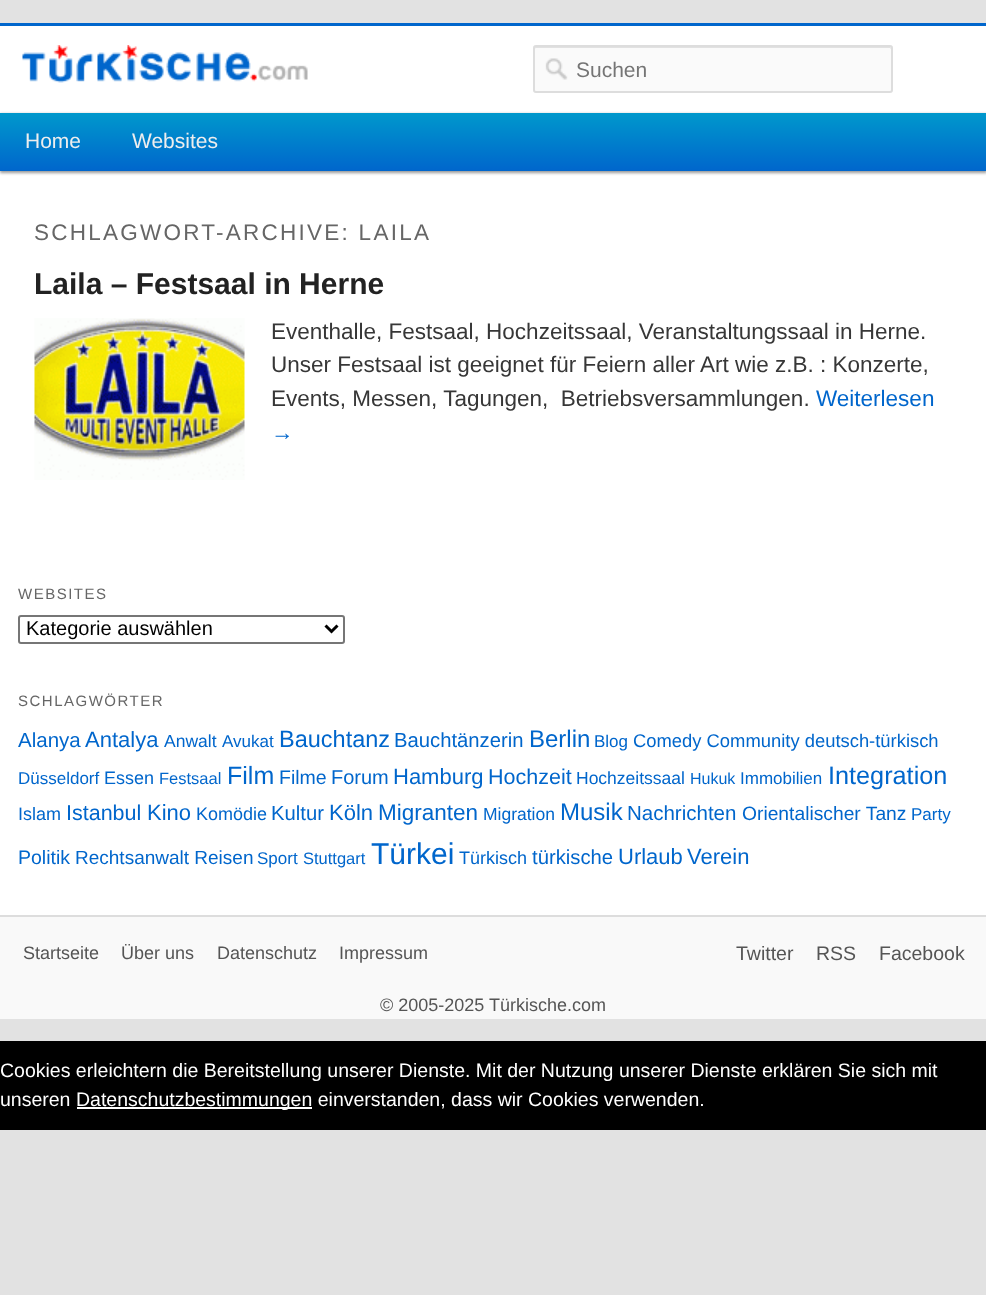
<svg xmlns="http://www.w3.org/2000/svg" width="986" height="1295">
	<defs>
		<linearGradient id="g1" gradientUnits="userSpaceOnUse" x1="494" y1="112" x2="494" y2="171"><stop offset="0" stop-color="#0099CC" /><stop offset="1" stop-color="#0066CC" /></linearGradient>
	</defs>
	<rect width="100%" height="100%" fill="#E2E2E2" />
	<rect x="0" y="26" width="986" height="889" fill="#FFFFFF" />
	<rect x="0" y="23" width="986" height="3" fill="#0066CC" />
	<image x="22" y="45" width="286" height="38" href="assets/img1.png" />
	<rect x="533" y="45" width="360" height="48" rx="3" fill="#FAFAFA" />
	<path d="M536 48H890L891 49C891 48 891 47 890 47H536C534 47 534 48 534 49Z" fill="#E1E1E1" />
	<rect x="534" y="46" width="358" height="46" rx="2" fill="none" stroke="#DDDDDD" stroke-width="2" />
	<image x="545" y="58" width="23" height="22" href="assets/img2.png" />
	<text x="576" y="77" font-family="Liberation Sans" font-size="21" fill="#757575">Suchen</text>
	<rect x="0" y="114" width="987" height="59" fill="#000000" fill-opacity="0.4" filter="blur(1.5px)" />
	<rect x="0" y="113" width="986" height="58" fill="url(#g1)" />
	<g font-family="Liberation Sans" font-size="21" fill="#EEEEEE">
		<text x="25" y="148">Home</text>
		<text x="132" y="148">Websites</text>
	</g>
	<text x="34" y="240" font-family="Liberation Sans" font-size="22.5" letter-spacing="2.25" fill="#666666">SCHLAGWORT-ARCHIVE: LAILA</text>
	<text x="34" y="294" font-family="Liberation Sans" font-size="30" font-weight="700" fill="#222222">Laila – Festsaal in Herne</text>
	<image x="34" y="318" width="211" height="162" href="assets/img3.png" />
	<g font-family="Liberation Sans" font-size="22.5" fill="#373737">
		<text x="271" y="339">Eventhalle, Festsaal, Hochzeitssaal, Veranstaltungssaal in Herne.</text>
		<text x="271" y="372">Unser Festsaal ist geeignet für Feiern aller Art wie z.B. : Konzerte,</text>
		<text x="271" y="406" xml:space="preserve">Events, Messen, Tagungen,  Betriebsversammlungen.</text>
	</g>
	<g font-family="Liberation Sans" font-size="22.5" fill="#0066CC">
		<text x="816" y="406">Weiterlesen</text>
		<text x="271" y="440">→</text>
	</g>
	<text x="18" y="599" font-family="Liberation Sans" font-size="15" letter-spacing="1.5" fill="#666666">WEBSITES</text>
	<rect x="19" y="616" width="325" height="27" rx="2" fill="none" stroke="#767676" stroke-width="2" />
	<path d="M325.5 625.5L331.5 631.5L337.5 625.5" fill="none" stroke="#000000" stroke-width="3" />
	<text x="26" y="635" font-family="Liberation Sans" font-size="20" fill="#000000">Kategorie auswählen</text>
	<text x="18" y="706" font-family="Liberation Sans" font-size="15" letter-spacing="1.5" fill="#666666">SCHLAGWÖRTER</text>
	<text x="18" y="747" font-family="Liberation Sans" font-size="20.5" fill="#0066CC">Alanya</text>
	<text x="85" y="747" font-family="Liberation Sans" font-size="22" fill="#0066CC">Antalya</text>
	<text x="164" y="747" font-family="Liberation Sans" font-size="17.5" fill="#0066CC">Anwalt</text>
	<text x="222" y="747" font-family="Liberation Sans" font-size="17" fill="#0066CC">Avukat</text>
	<text x="279" y="747" font-family="Liberation Sans" font-size="23.5" fill="#0066CC">Bauchtanz</text>
	<text x="394" y="747" font-family="Liberation Sans" font-size="20.25" fill="#0066CC">Bauchtänzerin</text>
	<text x="529" y="747" font-family="Liberation Sans" font-size="24" fill="#0066CC">Berlin</text>
	<text x="594" y="747" font-family="Liberation Sans" font-size="17" fill="#0066CC">Blog</text>
	<text x="633" y="747" font-family="Liberation Sans" font-size="18.4" fill="#0066CC">Comedy Community deutsch-türkisch</text>
	<text x="18" y="784" font-family="Liberation Sans" font-size="17" fill="#0066CC">Düsseldorf</text>
	<text x="104" y="784" font-family="Liberation Sans" font-size="18" fill="#0066CC">Essen</text>
	<text x="159" y="784" font-family="Liberation Sans" font-size="16.5" fill="#0066CC">Festsaal</text>
	<text x="227" y="784" font-family="Liberation Sans" font-size="25" fill="#0066CC">Film</text>
	<text x="279" y="784" font-family="Liberation Sans" font-size="19.5" fill="#0066CC">Filme</text>
	<text x="331" y="784" font-family="Liberation Sans" font-size="20" fill="#0066CC">Forum</text>
	<text x="393" y="784" font-family="Liberation Sans" font-size="22" fill="#0066CC">Hamburg</text>
	<text x="488" y="784" font-family="Liberation Sans" font-size="21.5" fill="#0066CC">Hochzeit</text>
	<text x="576" y="784" font-family="Liberation Sans" font-size="17.5" fill="#0066CC">Hochzeitssaal</text>
	<text x="690" y="784" font-family="Liberation Sans" font-size="16" fill="#0066CC">Hukuk</text>
	<text x="740" y="784" font-family="Liberation Sans" font-size="17" fill="#0066CC">Immobilien</text>
	<text x="828" y="784" font-family="Liberation Sans" font-size="25.25" fill="#0066CC">Integration</text>
	<text x="18" y="820" font-family="Liberation Sans" font-size="18" fill="#0066CC">Islam</text>
	<text x="66" y="820" font-family="Liberation Sans" font-size="21.5" fill="#0066CC">Istanbul</text>
	<text x="147" y="820" font-family="Liberation Sans" font-size="22" fill="#0066CC">Kino</text>
	<text x="196" y="820" font-family="Liberation Sans" font-size="18" fill="#0066CC">Komödie</text>
	<text x="271" y="820" font-family="Liberation Sans" font-size="20.25" fill="#0066CC">Kultur</text>
	<text x="329" y="820" font-family="Liberation Sans" font-size="22" fill="#0066CC">Köln</text>
	<text x="378" y="820" font-family="Liberation Sans" font-size="22.5" fill="#0066CC">Migranten</text>
	<text x="483" y="820" font-family="Liberation Sans" font-size="17.5" fill="#0066CC">Migration</text>
	<text x="560" y="820" font-family="Liberation Sans" font-size="24" fill="#0066CC">Musik</text>
	<text x="627" y="820" font-family="Liberation Sans" font-size="20.5" fill="#0066CC">Nachrichten</text>
	<text x="742" y="820" font-family="Liberation Sans" font-size="19.25" fill="#0066CC">Orientalischer Tanz</text>
	<text x="911" y="820" font-family="Liberation Sans" font-size="17" fill="#0066CC">Party</text>
	<text x="18" y="864" font-family="Liberation Sans" font-size="19.5" fill="#0066CC">Politik</text>
	<text x="75" y="864" font-family="Liberation Sans" font-size="19" fill="#0066CC">Rechtsanwalt Reisen</text>
	<text x="257" y="864" font-family="Liberation Sans" font-size="17" fill="#0066CC">Sport</text>
	<text x="303" y="864" font-family="Liberation Sans" font-size="16.5" fill="#0066CC">Stuttgart</text>
	<text x="371" y="864" font-family="Liberation Sans" font-size="30" fill="#0066CC">Türkei</text>
	<text x="459" y="864" font-family="Liberation Sans" font-size="18" fill="#0066CC">Türkisch</text>
	<text x="532" y="864" font-family="Liberation Sans" font-size="20.25" fill="#0066CC">türkische</text>
	<g font-family="Liberation Sans" font-size="22" fill="#0066CC">
		<text x="618" y="864">Urlaub</text>
		<text x="687" y="864">Verein</text>
	</g>
	<rect x="0" y="915" width="986" height="2" fill="#DDDDDD" />
	<rect x="0" y="917" width="986" height="102" fill="#F9F9F9" />
	<g font-family="Liberation Sans" font-size="18" fill="#555555">
		<text x="23" y="959">Startseite</text>
		<text x="121" y="959">Über uns</text>
		<text x="217" y="959">Datenschutz</text>
		<text x="339" y="959">Impressum</text>
	</g>
	<g font-family="Liberation Sans" font-size="19.5" fill="#555555">
		<text x="736" y="960">Twitter</text>
		<text x="816" y="960">RSS</text>
		<text x="879" y="960">Facebook</text>
	</g>
	<text x="380" y="1011" font-family="Liberation Sans" font-size="18" fill="#555555">© 2005-2025 Türkische.com</text>
	<rect x="0" y="1041" width="986" height="89" fill="#000000" />
	<g font-family="Liberation Sans" font-size="19.5" fill="#FFFFFF">
		<text x="0" y="1077">Cookies erleichtern die Bereitstellung unserer Dienste. Mit der Nutzung unserer Dienste erklären Sie sich mit</text>
		<text x="0" y="1106">unseren</text>
	</g>
	<rect x="77" y="1107" width="235" height="2" fill="#FFFFFF" />
	<text x="76" y="1106" font-family="Liberation Sans" font-size="19.5" fill="#FFFFFF">Datenschutzbestimmungen einverstanden, dass wir Cookies verwenden.</text>
</svg>
